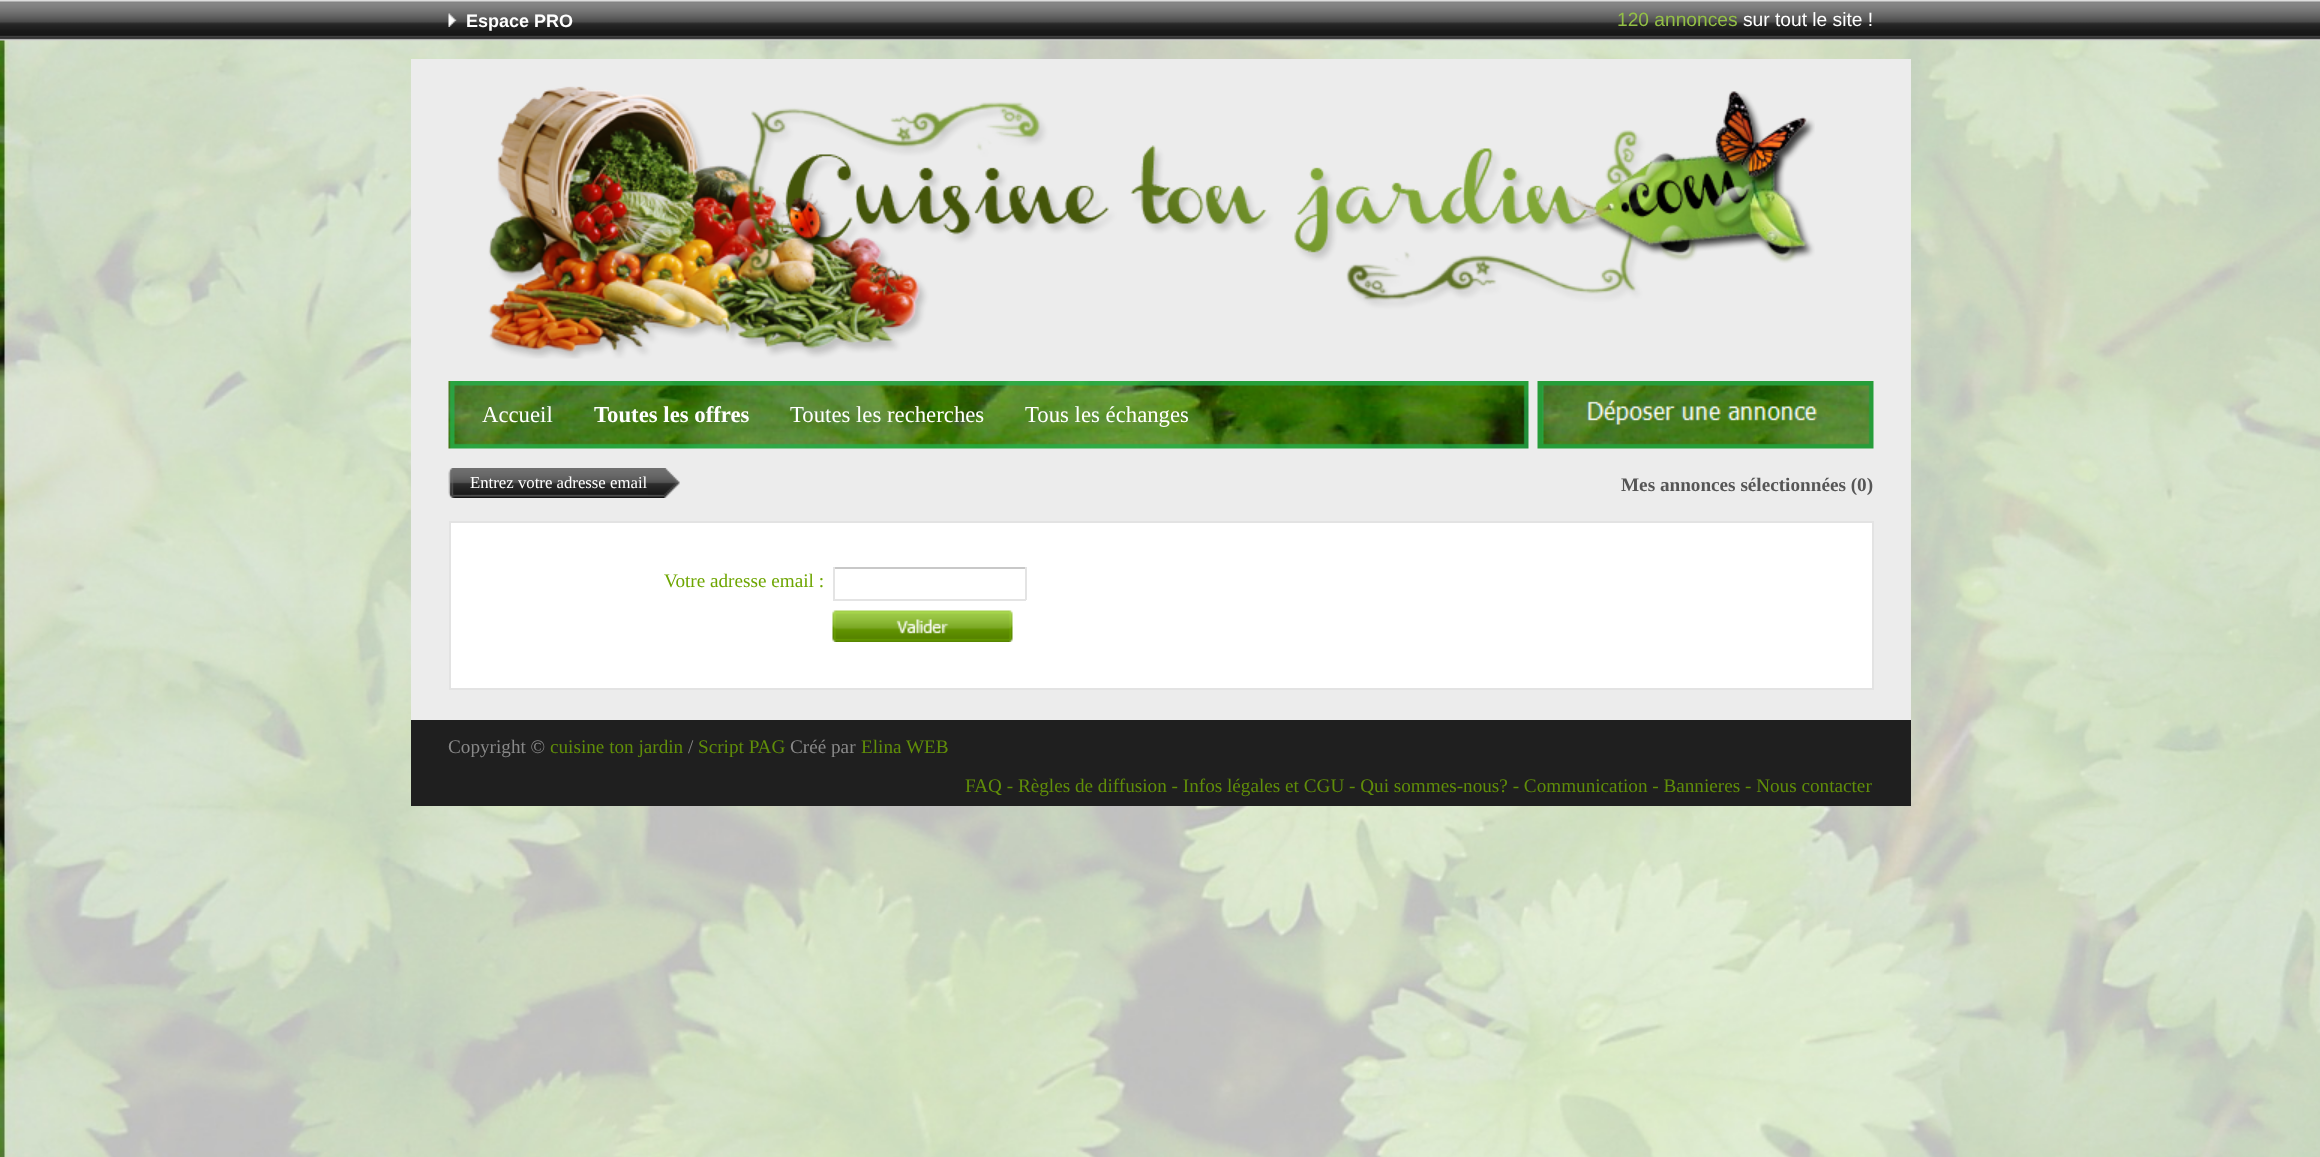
<svg xmlns="http://www.w3.org/2000/svg" width="2320" height="1157">
	<rect width="100%" height="100%" fill="#FFFFFF" />
	<image x="0" y="40" width="2320" height="1117" href="assets/img1.png" />
	<image x="0" y="0" width="2320" height="41" href="assets/img2.png" />
	<image x="448" y="13" width="9" height="14" href="assets/img3.png" />
	<text x="466" y="27" font-family="Liberation Sans" font-size="18" font-weight="700" fill="#FFFFFF">Espace PRO</text>
	<text x="1617" y="26" font-family="Liberation Sans" font-size="19.2" fill="#93BF46">120 annonces</text>
	<text x="1743" y="26" font-family="Liberation Sans" font-size="19.2" fill="#FFFFFF">sur tout le site !</text>
	<rect x="411" y="59" width="1500" height="661" fill="#ECECEC" />
	<image x="488" y="86" width="1327" height="273" href="assets/img4.png" />
	<image x="448" y="381" width="1081" height="68" href="assets/img5.png" />
	<text x="482" y="422" font-family="Liberation Serif" font-size="22.75" fill="#FFFFFF">Accueil</text>
	<text x="594" y="422" font-family="Liberation Serif" font-size="22.75" font-weight="700" fill="#FFFFFF">Toutes les offres</text>
	<g font-family="Liberation Serif" font-size="22.75" fill="#FFFFFF">
		<text x="790" y="422">Toutes les recherches</text>
		<text x="1025" y="422">Tous les échanges</text>
	</g>
	<image x="1537" y="381" width="337" height="68" href="assets/img6.png" />
	<image x="448" y="468" width="23" height="30" href="assets/img7.png" />
	<image x="471" y="468" width="177" height="30" href="assets/img8.png" />
	<text x="470" y="488" font-family="Liberation Serif" font-size="16.75" fill="#FFFFFF">Entrez votre adresse email</text>
	<image x="648" y="468" width="32" height="30" href="assets/img9.png" />
	<text x="1621" y="491" font-family="Liberation Serif" font-size="19.2" font-weight="700" fill="#565656">Mes annonces sélectionnées (0)</text>
	<rect x="450" y="522" width="1423" height="167" fill="#FFFFFF" stroke="#E3E3E3" stroke-width="2" />
	<text x="664" y="587" font-family="Liberation Serif" font-size="19.2" fill="#6EA602">Votre adresse email :</text>
	<rect x="833" y="567" width="193" height="2" fill="#C8C8C8" />
	<rect x="1025" y="567" width="2" height="33" fill="#E4E4E4" />
	<rect x="833" y="599" width="193" height="2" fill="#E4E4E4" />
	<rect x="833" y="567" width="2" height="33" fill="#E4E4E4" />
	<image x="832" y="610" width="181" height="32" href="assets/img10.png" />
	<rect x="411" y="720" width="1500" height="86" fill="#1F1F1F" />
	<text x="448" y="753" font-family="Liberation Serif" font-size="19.2" fill="#888888">Copyright ©</text>
	<text x="550" y="753" font-family="Liberation Serif" font-size="19.2" fill="#608D09">cuisine ton jardin</text>
	<text x="688" y="753" font-family="Liberation Serif" font-size="19.2" fill="#888888">/</text>
	<text x="698" y="753" font-family="Liberation Serif" font-size="19.2" fill="#608D09">Script PAG</text>
	<text x="790" y="753" font-family="Liberation Serif" font-size="19.2" fill="#888888">Créé par</text>
	<g font-family="Liberation Serif" font-size="19.2" fill="#608D09">
		<text x="861" y="753">Elina WEB</text>
		<text x="965" y="792">FAQ - Règles de diffusion - Infos légales et CGU - Qui sommes-nous? - Communication - Bannieres - Nous contacter</text>
	</g>
</svg>
